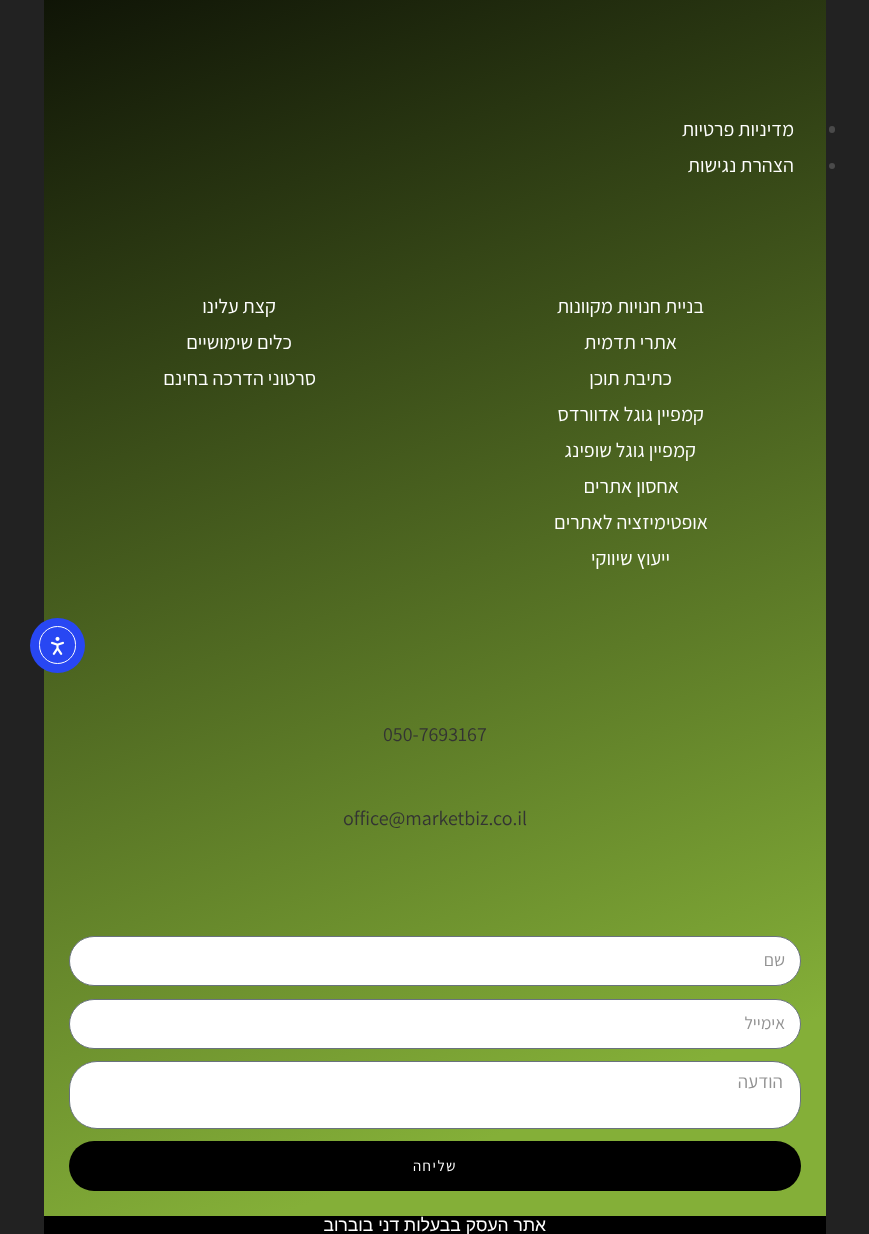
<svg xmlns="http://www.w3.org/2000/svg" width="869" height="1234">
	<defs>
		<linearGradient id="g1" gradientUnits="userSpaceOnUse" x1="704" y1="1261" x2="166" y2="-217"><stop offset="0.12" stop-color="#84AF38" /><stop offset="1" stop-color="#000000" /></linearGradient>
	</defs>
	<rect width="100%" height="100%" fill="#222222" />
	<rect x="44" y="0" width="782" height="1216" fill="url(#g1)" />
	<rect x="829" y="126" width="6" height="7" rx="3" fill="#4A4A4A" />
	<text x="794" y="136" font-family="Assistant" font-size="20" direction="rtl" fill="#FFFFFF">מדיניות פרטיות</text>
	<circle cx="832" cy="166" r="3" fill="#4A4A4A" />
	<g font-family="Assistant" font-size="20" direction="rtl" fill="#FFFFFF">
		<text x="794" y="172">הצהרת נגישות</text>
		<text x="704" y="313">בניית חנויות מקוונות</text>
		<text x="677" y="349">אתרי תדמית</text>
		<text x="672" y="385">כתיבת תוכן</text>
		<text x="704" y="421">קמפיין גוגל אדוורדס</text>
		<text x="696" y="457">קמפיין גוגל שופינג</text>
		<text x="679" y="493">אחסון אתרים</text>
		<text x="708" y="529">אופטימיזציה לאתרים</text>
		<text x="670" y="565">ייעוץ שיווקי</text>
		<text x="276" y="313">קצת עלינו</text>
		<text x="292" y="349">כלים שימושיים</text>
		<text x="316" y="385">סרטוני הדרכה בחינם</text>
	</g>
	<g font-family="Assistant" font-size="20" fill="#333333">
		<text x="383" y="741">050-7693167</text>
		<text x="343" y="825">office@marketbiz.co.il</text>
	</g>
	<rect x="69.5" y="936.5" width="731" height="49" rx="24.5" fill="#FFFFFF" stroke="#69727D" />
	<text x="785" y="966" font-family="Assistant" font-size="17.5" direction="rtl" fill="#929292">שם</text>
	<rect x="69.5" y="999.5" width="731" height="49" rx="24.5" fill="#FFFFFF" stroke="#69727D" />
	<text x="785" y="1029" font-family="Assistant" font-size="17.5" direction="rtl" fill="#929292">אימייל</text>
	<rect x="69.5" y="1061.5" width="731" height="67" rx="27.5" fill="#FFFFFF" stroke="#69727D" />
	<text x="783" y="1088" font-family="Assistant" font-size="19" direction="rtl" fill="#929292">הודעה</text>
	<rect x="69" y="1141" width="732" height="50" rx="25" fill="#000000" />
	<text x="457" y="1171" font-family="Assistant" font-size="15" letter-spacing="1.5" direction="rtl" fill="#FFFFFF">שליחה</text>
	<rect x="44" y="1216" width="782" height="18" fill="#000000" />
	<text x="546" y="1231" font-family="Liberation Sans" font-size="17.5" direction="rtl" fill="#FFFFFF">אתר העסק בבעלות דני בוברוב</text>
	<circle cx="57.5" cy="645.5" r="27.5" fill="#2847F3" />
	<rect x="39.5" y="626.5" width="36" height="37" rx="18" fill="none" stroke="#FFFFFF" />
	<image x="51" y="636" width="13" height="19" href="assets/img1.png" />
</svg>
